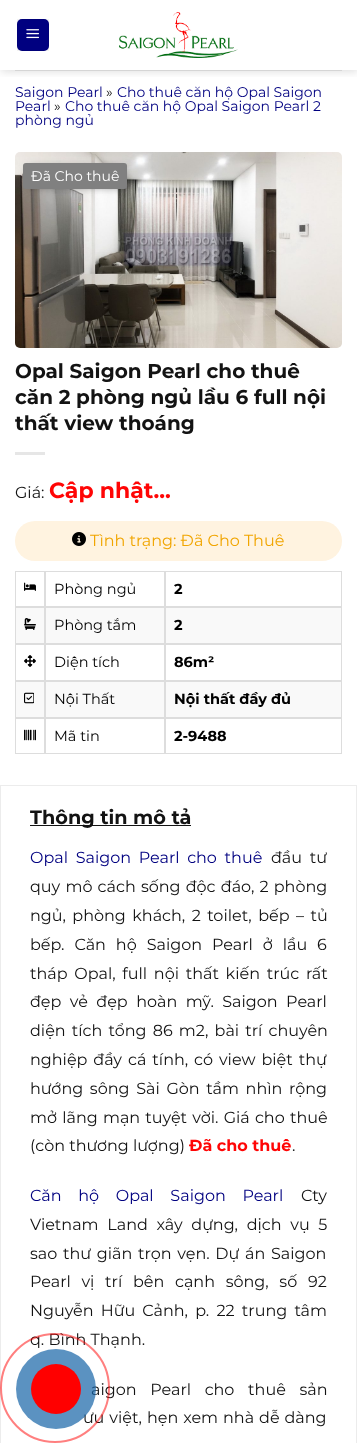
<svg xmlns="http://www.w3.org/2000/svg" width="357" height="1443">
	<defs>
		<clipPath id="clip1"><rect x="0" y="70" width="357" height="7" /></clipPath>
	</defs>
	<rect width="100%" height="100%" fill="#FFFFFF" />
	<g clip-path="url(#clip1)">
		<rect x="1" y="1" width="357" height="70" fill="#000000" fill-opacity="0.15" filter="blur(5px)" />
	</g>
	<rect x="17" y="19" width="32" height="32" rx="5" fill="#000080" />
	<rect x="17.5" y="19.5" width="31" height="31" fill="none" stroke="#000000" stroke-opacity="0.05" />
	<image x="26" y="29" width="13" height="10" href="assets/img1.png" />
	<image x="119" y="12" width="119" height="46" href="assets/img2.png" />
	<rect x="15" y="70" width="327" height="1" fill="#D5D5D5" />
	<text x="15" y="97" font-family="Montserrat" font-size="14" fill="#000080">Saigon Pearl</text>
	<text x="106" y="97" font-family="Montserrat" font-size="14" fill="#131313">»</text>
	<g font-family="Montserrat" font-size="14" fill="#000080">
		<text x="117" y="97">Cho thuê căn hộ Opal Saigon</text>
		<text x="15" y="111">Pearl</text>
	</g>
	<text x="54" y="111" font-family="Montserrat" font-size="14" fill="#131313">»</text>
	<g font-family="Montserrat" font-size="14" fill="#000080">
		<text x="65" y="111">Cho thuê căn hộ Opal Saigon Pearl 2</text>
		<text x="15" y="125">phòng ngủ</text>
	</g>
	<image x="15" y="152" width="327" height="196" href="assets/img3.png" />
	<rect x="29" y="169" width="94" height="16" fill="#333333" filter="blur(5px)" />
	<rect x="23" y="163" width="104" height="26" rx="3" fill="#808080" />
	<text x="31" y="181" font-family="Montserrat" font-size="14" fill="#FFFFFF">Đã Cho thuê</text>
	<g font-family="Montserrat" font-size="20" font-weight="700" fill="#131313">
		<text x="15" y="378">Opal Saigon Pearl cho thuê</text>
		<text x="15" y="404">căn 2 phòng ngủ lầu 6 full nội</text>
		<text x="15" y="430">thất view thoáng</text>
	</g>
	<rect x="15" y="452" width="30" height="3" fill="#E6E6E6" />
	<text x="15" y="498" font-family="Montserrat" font-size="16" fill="#131313">Giá:</text>
	<text x="49" y="498" font-family="Montserrat" font-size="22" font-weight="700" fill="#FF0505">Cập nhật...</text>
	<rect x="15" y="521" width="327" height="40" rx="20" fill="#FFF3E0" />
	<image x="72" y="532" width="14" height="14" href="assets/img4.png" />
	<text x="90" y="546" font-family="Montserrat" font-size="16" fill="#F1A500">Tình trạng: Đã Cho Thuê</text>
	<rect x="15.5" y="571.5" width="29" height="35" fill="none" stroke="#DDDDDD" />
	<image x="24" y="582" width="12" height="9" href="assets/img5.png" />
	<rect x="45.5" y="571.5" width="119" height="35" fill="none" stroke="#DDDDDD" />
	<text x="54" y="594" font-family="Montserrat" font-size="14.5" fill="#000000">Phòng ngủ</text>
	<rect x="165.5" y="571.5" width="176" height="35" fill="none" stroke="#DDDDDD" />
	<text x="174" y="594" font-family="Montserrat" font-size="14.5" font-weight="700" fill="#000000">2</text>
	<rect x="16" y="608" width="325" height="35" fill="#F9F9F9" />
	<rect x="15.5" y="607.5" width="29" height="36" fill="none" stroke="#DDDDDD" />
	<image x="24" y="618" width="12" height="12" href="assets/img6.png" />
	<rect x="45.5" y="607.5" width="119" height="36" fill="none" stroke="#DDDDDD" />
	<text x="54" y="630" font-family="Montserrat" font-size="14.5" fill="#000000">Phòng tắm</text>
	<rect x="165.5" y="607.5" width="176" height="36" fill="none" stroke="#DDDDDD" />
	<text x="174" y="630" font-family="Montserrat" font-size="14.5" font-weight="700" fill="#000000">2</text>
	<rect x="15.5" y="644.5" width="29" height="36" fill="none" stroke="#DDDDDD" />
	<image x="24" y="655" width="12" height="12" href="assets/img7.png" />
	<rect x="45.5" y="644.5" width="119" height="36" fill="none" stroke="#DDDDDD" />
	<text x="54" y="667" font-family="Montserrat" font-size="14.5" fill="#000000">Diện tích</text>
	<rect x="165.5" y="644.5" width="176" height="36" fill="none" stroke="#DDDDDD" />
	<text x="174" y="667" font-family="Montserrat" font-size="14.5" font-weight="700" fill="#000000">86m²</text>
	<rect x="16" y="682" width="325" height="35" fill="#F9F9F9" />
	<rect x="15.5" y="681.5" width="29" height="36" fill="none" stroke="#DDDDDD" />
	<image x="24" y="692" width="10" height="12" href="assets/img8.png" />
	<rect x="45.5" y="681.5" width="119" height="36" fill="none" stroke="#DDDDDD" />
	<text x="54" y="704" font-family="Montserrat" font-size="14.5" fill="#000000">Nội Thất</text>
	<rect x="165.5" y="681.5" width="176" height="36" fill="none" stroke="#DDDDDD" />
	<text x="174" y="704" font-family="Montserrat" font-size="14.5" font-weight="700" fill="#000000">Nội thất đầy đủ</text>
	<rect x="15.5" y="718.5" width="29" height="35" fill="none" stroke="#DDDDDD" />
	<image x="24" y="729" width="12" height="12" href="assets/img9.png" />
	<rect x="45.5" y="718.5" width="119" height="35" fill="none" stroke="#DDDDDD" />
	<text x="54" y="741" font-family="Montserrat" font-size="14.5" fill="#000000">Mã tin</text>
	<rect x="165.5" y="718.5" width="176" height="35" fill="none" stroke="#DDDDDD" />
	<text x="174" y="741" font-family="Montserrat" font-size="14.5" font-weight="700" fill="#000000">2-9488</text>
	<rect x="0.5" y="785.5" width="356" height="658" fill="none" stroke="#ECECEC" />
	<rect x="30" y="825" width="161" height="1" fill="#131313" />
	<text x="30" y="824" font-family="Montserrat" font-size="19.25" font-weight="700" fill="#131313">Thông tin mô tả</text>
	<text x="30" y="863" word-spacing="3.5" font-family="Montserrat" font-size="16" fill="#000080">Opal Saigon Pearl cho thuê</text>
	<g font-family="Montserrat" font-size="16" fill="#131313">
		<text x="271" y="863" word-spacing="3.5">đầu tư</text>
		<text x="30" y="892" word-spacing="1">quy mô cách sống độc đáo, 2 phòng</text>
		<text x="30" y="921" word-spacing="2.25">ngủ, phòng khách, 2 toilet, bếp – tủ</text>
		<text x="30" y="950" word-spacing="5.75">bếp. Căn hộ Saigon Pearl ở lầu 6</text>
		<text x="30" y="979" word-spacing="2.5">tháp Opal, full nội thất kiến trúc rất</text>
		<text x="30" y="1007" word-spacing="4.25">đẹp vẻ đẹp hoàn mỹ. Saigon Pearl</text>
		<text x="30" y="1036" word-spacing="2">diện tích tổng 86 m2, bài trí chuyên</text>
		<text x="30" y="1065" word-spacing="1.75">nghiệp đầy cá tính, có view biệt thự</text>
		<text x="30" y="1094" word-spacing="2.5">hướng sông Sài Gòn tầm nhìn rộng</text>
		<text x="30" y="1123" word-spacing="1">mở lãng mạn tuyệt vời. Giá cho thuê</text>
		<text x="30" y="1151">(còn thương lượng)</text>
	</g>
	<text x="189" y="1151" font-family="Montserrat" font-size="16" font-weight="700" fill="#FF0505">Đã cho thuê</text>
	<text x="292" y="1151" font-family="Montserrat" font-size="16" fill="#131313">.</text>
	<text x="30" y="1201" word-spacing="12.5" font-family="Montserrat" font-size="16" fill="#000080">Căn hộ Opal Saigon Pearl</text>
	<g font-family="Montserrat" font-size="16" fill="#131313">
		<text x="301" y="1201">Cty</text>
		<text x="30" y="1230" word-spacing="4.5">Vietnam Land xây dựng, dịch vụ 5</text>
		<text x="30" y="1259" word-spacing="1.5">sao thư giãn trọn vẹn. Dự án Saigon</text>
		<text x="30" y="1287" word-spacing="6.5">Pearl vị trí bên cạnh sông, số 92</text>
		<text x="30" y="1316" word-spacing="3">Nguyễn Hữu Cảnh, p. 22 trung tâm</text>
		<text x="30" y="1345">q. Bình Thạnh.</text>
		<text x="91" y="1395" word-spacing="9.5">aigon Pearl cho thuê sản</text>
		<text x="83" y="1423" word-spacing="0.75">ưu việt, hẹn xem nhà dễ dàng</text>
	</g>
	<circle cx="55" cy="1388" r="54" fill="none" stroke="#FF0000" stroke-opacity="0.5" stroke-width="2" />
	<circle cx="56" cy="1389" r="40" fill="#1564A7" fill-opacity="0.7" />
	<circle cx="56" cy="1389" r="25" fill="#FF0000" />
</svg>
